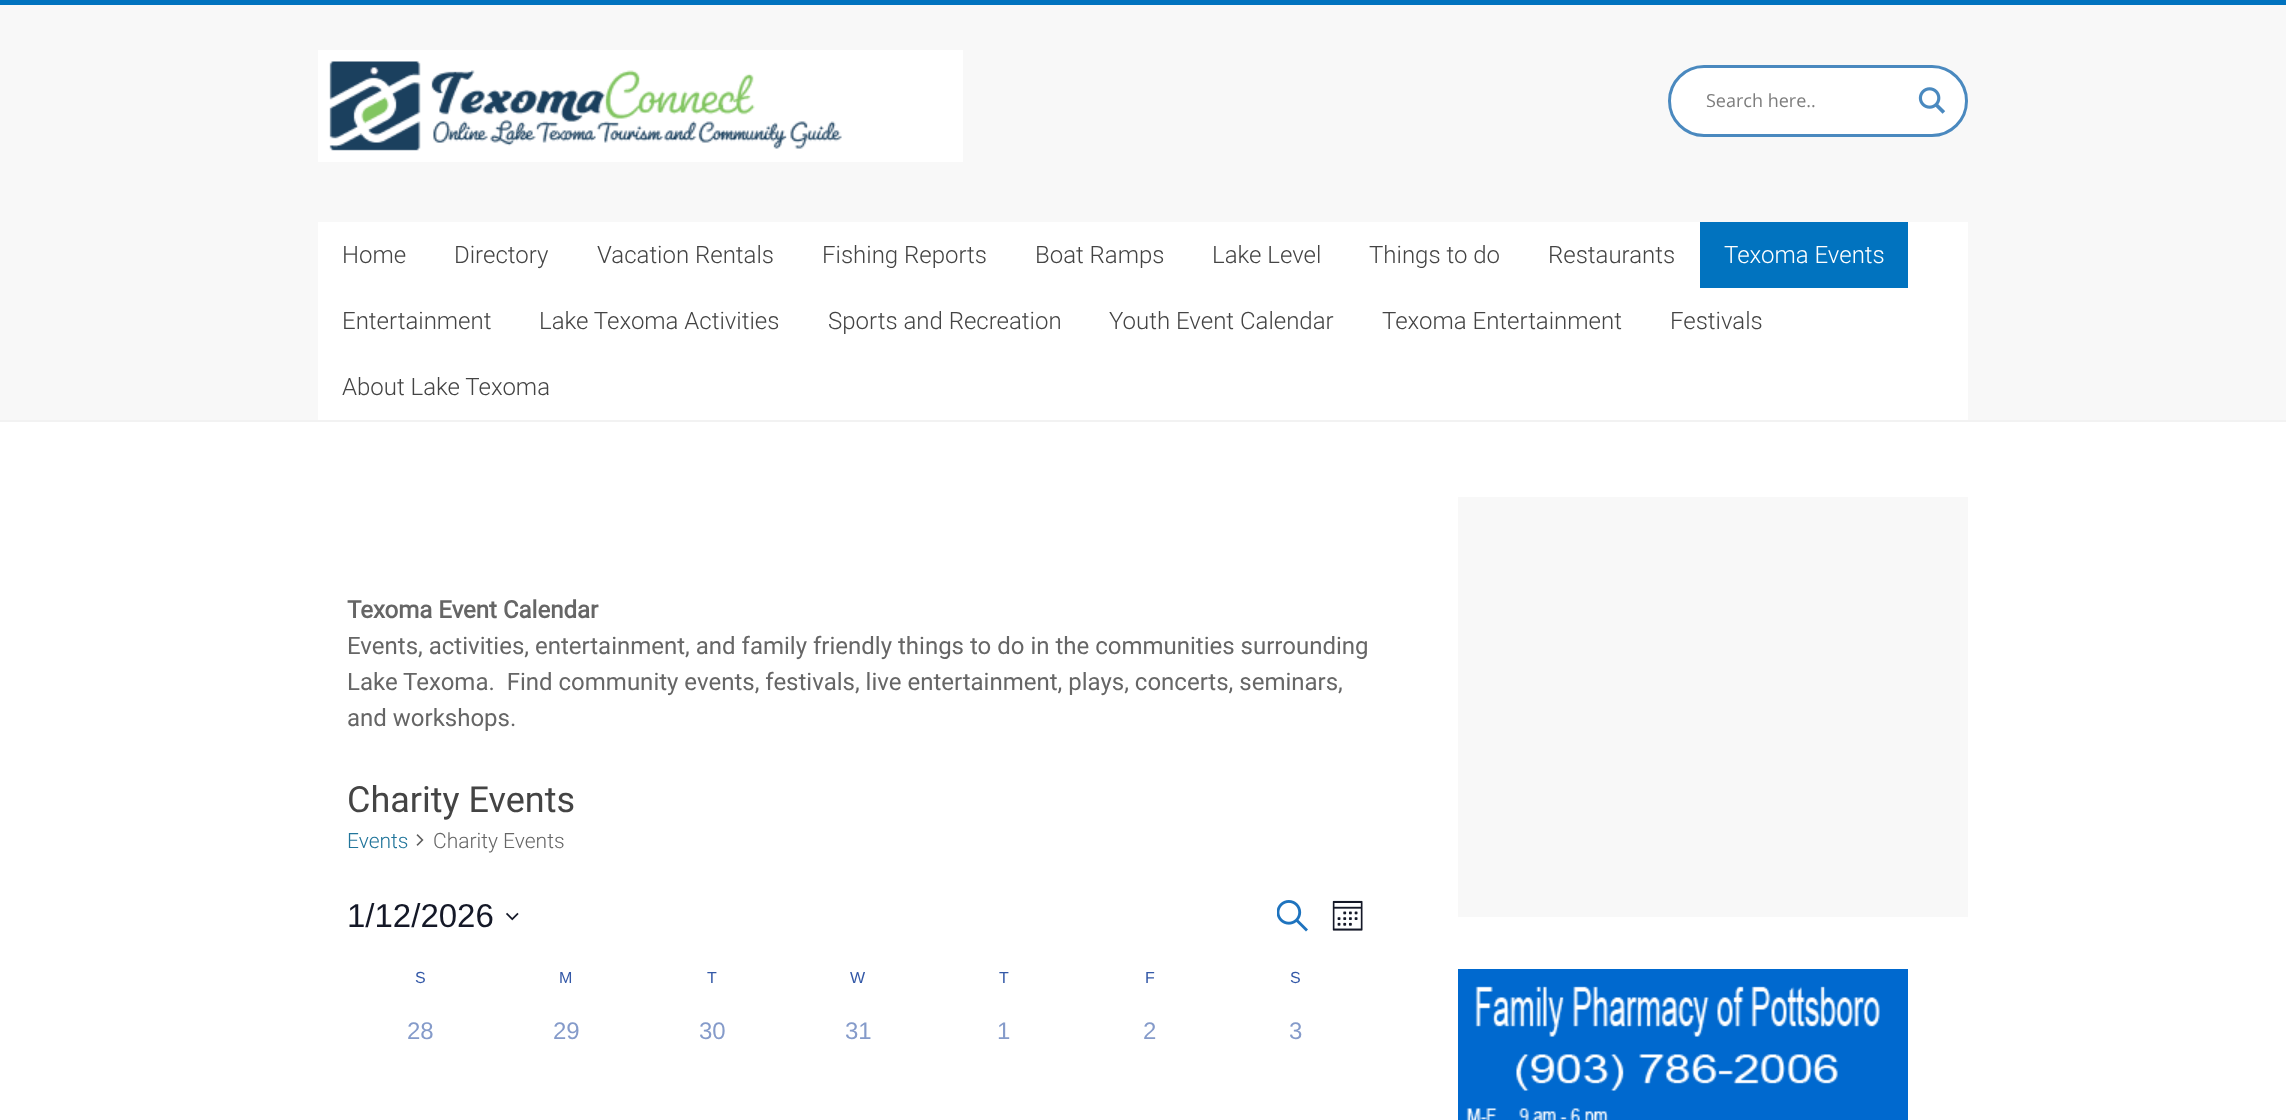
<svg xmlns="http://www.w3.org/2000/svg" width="2286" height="1120">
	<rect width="100%" height="100%" fill="#FFFFFF" />
	<rect x="0" y="0" width="2286" height="5" fill="#0173BF" />
	<rect x="0" y="5" width="2286" height="415" fill="#F8F8F8" />
	<rect x="0" y="420" width="2286" height="2" fill="#F2F2F2" />
	<image x="318" y="50" width="645" height="112" href="assets/img1.png" />
	<rect x="1669.5" y="66.5" width="297" height="69" rx="34.5" fill="#FFFFFF" stroke="#4A89BF" stroke-width="3" />
	<text x="1706" y="107" font-family="Open Sans" font-size="18" fill="#7D7D7D">Search here..</text>
	<image x="1918" y="87" width="28" height="27" href="assets/img2.png" />
	<rect x="318" y="222" width="1650" height="198" fill="#FFFFFF" />
	<g font-family="Roboto" font-size="24" font-weight="300" fill="#444444">
		<text x="342" y="263">Home</text>
		<text x="454" y="263">Directory</text>
		<text x="597" y="263">Vacation Rentals</text>
		<text x="822" y="263">Fishing Reports</text>
		<text x="1035" y="263">Boat Ramps</text>
		<text x="1212" y="263">Lake Level</text>
		<text x="1369" y="263">Things to do</text>
		<text x="1548" y="263">Restaurants</text>
	</g>
	<rect x="1700" y="222" width="208" height="66" fill="#0173BF" />
	<text x="1724" y="263" font-family="Roboto" font-size="24" font-weight="300" fill="#FFFFFF">Texoma Events</text>
	<g font-family="Roboto" font-size="24" font-weight="300" fill="#444444">
		<text x="342" y="329">Entertainment</text>
		<text x="539" y="329">Lake Texoma Activities</text>
		<text x="828" y="329">Sports and Recreation</text>
		<text x="1109" y="329">Youth Event Calendar</text>
		<text x="1382" y="329">Texoma Entertainment</text>
		<text x="1670" y="329">Festivals</text>
		<text x="342" y="395">About Lake Texoma</text>
	</g>
	<text x="347" y="618" font-family="Roboto" font-size="24" font-weight="700" fill="#666666">Texoma Event Calendar</text>
	<g font-family="Roboto" font-size="24" fill="#666666">
		<text x="347" y="654">Events, activities, entertainment, and family friendly things to do in the communities surrounding</text>
		<text x="347" y="690" xml:space="preserve">Lake Texoma.  Find community events, festivals, live entertainment, plays, concerts, seminars,</text>
		<text x="347" y="726">and workshops.</text>
	</g>
	<text x="347" y="812" font-family="Roboto" font-size="36" fill="#444444">Charity Events</text>
	<text x="347" y="848" font-family="Roboto" font-size="21" font-weight="300" fill="#21759B">Events</text>
	<image x="416" y="834" width="8" height="12" href="assets/img3.png" />
	<text x="433" y="848" font-family="Roboto" font-size="21" font-weight="300" fill="#666666">Charity Events</text>
	<text x="347" y="927" font-family="Liberation Sans" font-size="33" fill="#141827">1/12/2026</text>
	<image x="506" y="912" width="13" height="9" href="assets/img4.png" />
	<image x="1277" y="900" width="31" height="32" href="assets/img5.png" />
	<image x="1332" y="900" width="31" height="31" href="assets/img6.png" />
	<g font-family="Liberation Sans" font-size="16" fill="#3358A7">
		<text x="415" y="983">S</text>
		<text x="559" y="983">M</text>
		<text x="707" y="983">T</text>
		<text x="850" y="983">W</text>
		<text x="999" y="983">T</text>
		<text x="1145" y="983">F</text>
		<text x="1290" y="983">S</text>
	</g>
	<g font-family="Liberation Sans" font-size="24" fill="#859BCA">
		<text x="407" y="1039">28</text>
		<text x="553" y="1039">29</text>
		<text x="699" y="1039">30</text>
		<text x="845" y="1039">31</text>
		<text x="997" y="1039">1</text>
		<text x="1143" y="1039">2</text>
		<text x="1289" y="1039">3</text>
	</g>
	<rect x="1458" y="497" width="510" height="420" fill="#F8F8F8" />
	<image x="1458" y="969" width="450" height="151" href="assets/img7.png" />
</svg>
